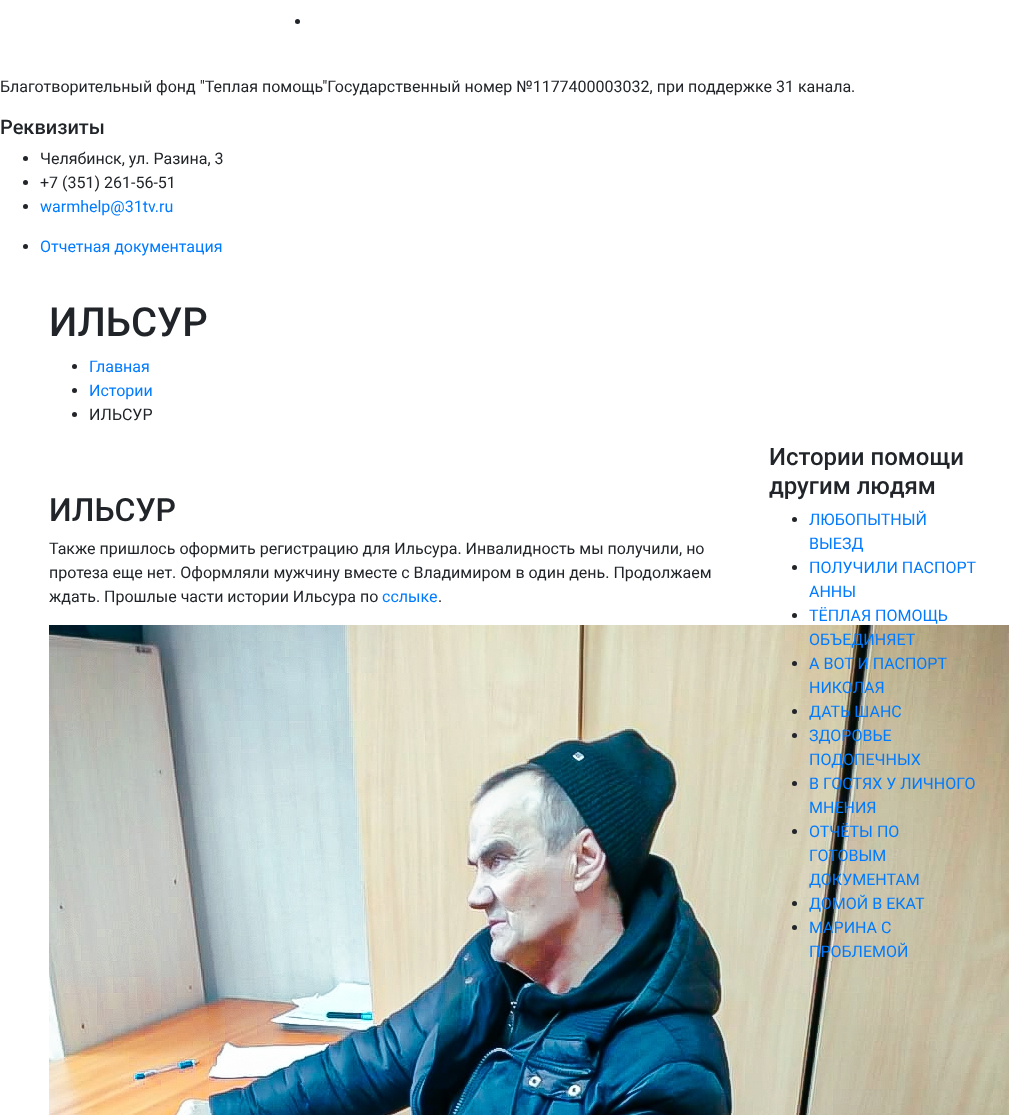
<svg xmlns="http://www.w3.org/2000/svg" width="1028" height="1115">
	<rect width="100%" height="100%" fill="#FFFFFF" />
	<circle cx="297.5" cy="21.5" r="2.5" fill="#212529" />
	<text x="0" y="92" font-family="Roboto" font-size="16" fill="#212529">Благотворительный фонд "Теплая помощь"Государственный номер №1177400003032, при поддержке 31 канала.</text>
	<text x="0" y="134" font-family="Roboto" font-size="20" font-weight="500" fill="#212529">Реквизиты</text>
	<circle cx="25.5" cy="158.5" r="2.5" fill="#212529" />
	<text x="40" y="164" font-family="Roboto" font-size="16" fill="#212529">Челябинск, ул. Разина, 3</text>
	<circle cx="25.5" cy="182.5" r="2.5" fill="#212529" />
	<text x="40" y="188" font-family="Roboto" font-size="16" fill="#212529">+7 (351) 261-56-51</text>
	<circle cx="25.5" cy="206.5" r="2.5" fill="#212529" />
	<text x="40" y="212" font-family="Roboto" font-size="16" fill="#007BFF">warmhelp@31tv.ru</text>
	<circle cx="25.5" cy="246.5" r="2.5" fill="#212529" />
	<text x="40" y="252" font-family="Roboto" font-size="16" fill="#007BFF">Отчетная документация</text>
	<text x="49" y="336" font-family="Roboto" font-size="40" font-weight="500" fill="#212529">ИЛЬСУР</text>
	<circle cx="74.5" cy="366.5" r="2.5" fill="#212529" />
	<text x="89" y="372" font-family="Roboto" font-size="16" fill="#007BFF">Главная</text>
	<circle cx="74.5" cy="390.5" r="2.5" fill="#212529" />
	<text x="89" y="396" font-family="Roboto" font-size="16" fill="#007BFF">Истории</text>
	<circle cx="74.5" cy="414.5" r="2.5" fill="#212529" />
	<text x="89" y="420" font-family="Roboto" font-size="16" fill="#212529">ИЛЬСУР</text>
	<text x="49" y="521" font-family="Roboto" font-size="32" font-weight="500" fill="#212529">ИЛЬСУР</text>
	<g font-family="Roboto" font-size="16" fill="#212529">
		<text x="49" y="554">Также пришлось оформить регистрацию для Ильсура. Инвалидность мы получили, но</text>
		<text x="49" y="578">протеза еще нет. Оформляли мужчину вместе с Владимиром в один день. Продолжаем</text>
		<text x="49" y="602">ждать. Прошлые части истории Ильсура по</text>
	</g>
	<text x="382" y="602" font-family="Roboto" font-size="16" fill="#007BFF">сслыке</text>
	<text x="438" y="602" font-family="Roboto" font-size="16" fill="#212529">.</text>
	<image x="49" y="625" width="960" height="490" href="assets/img1.png" />
	<g font-family="Roboto" font-size="24" font-weight="500" fill="#212529">
		<text x="769" y="465">Истории помощи</text>
		<text x="769" y="494">другим людям</text>
	</g>
	<circle cx="794.5" cy="519.5" r="2.5" fill="#212529" />
	<g font-family="Roboto" font-size="16" fill="#007BFF">
		<text x="809" y="525">ЛЮБОПЫТНЫЙ</text>
		<text x="809" y="549">ВЫЕЗД</text>
	</g>
	<circle cx="794.5" cy="567.5" r="2.5" fill="#212529" />
	<g font-family="Roboto" font-size="16" fill="#007BFF">
		<text x="809" y="573">ПОЛУЧИЛИ ПАСПОРТ</text>
		<text x="809" y="597">АННЫ</text>
	</g>
	<circle cx="794.5" cy="615.5" r="2.5" fill="#212529" />
	<g font-family="Roboto" font-size="16" fill="#007BFF">
		<text x="809" y="621">ТЁПЛАЯ ПОМОЩЬ</text>
		<text x="809" y="645">ОБЪЕДИНЯЕТ</text>
	</g>
	<circle cx="794.5" cy="663.5" r="2.5" fill="#212529" />
	<g font-family="Roboto" font-size="16" fill="#007BFF">
		<text x="809" y="669">А ВОТ И ПАСПОРТ</text>
		<text x="809" y="693">НИКОЛАЯ</text>
	</g>
	<circle cx="794.5" cy="711.5" r="2.5" fill="#212529" />
	<text x="809" y="717" font-family="Roboto" font-size="16" fill="#007BFF">ДАТЬ ШАНС</text>
	<circle cx="794.5" cy="735.5" r="2.5" fill="#212529" />
	<g font-family="Roboto" font-size="16" fill="#007BFF">
		<text x="809" y="741">ЗДОРОВЬЕ</text>
		<text x="809" y="765">ПОДОПЕЧНЫХ</text>
	</g>
	<circle cx="794.5" cy="783.5" r="2.5" fill="#212529" />
	<g font-family="Roboto" font-size="16" fill="#007BFF">
		<text x="809" y="789">В ГОСТЯХ У ЛИЧНОГО</text>
		<text x="809" y="813">МНЕНИЯ</text>
	</g>
	<circle cx="794.5" cy="831.5" r="2.5" fill="#212529" />
	<g font-family="Roboto" font-size="16" fill="#007BFF">
		<text x="809" y="837">ОТЧЁТЫ ПО</text>
		<text x="809" y="861">ГОТОВЫМ</text>
		<text x="809" y="885">ДОКУМЕНТАМ</text>
	</g>
	<circle cx="794.5" cy="903.5" r="2.5" fill="#212529" />
	<text x="809" y="909" font-family="Roboto" font-size="16" fill="#007BFF">ДОМОЙ В ЕКАТ</text>
	<circle cx="794.5" cy="927.5" r="2.5" fill="#212529" />
	<g font-family="Roboto" font-size="16" fill="#007BFF">
		<text x="809" y="933">МАРИНА С</text>
		<text x="809" y="957">ПРОБЛЕМОЙ</text>
	</g>
</svg>
